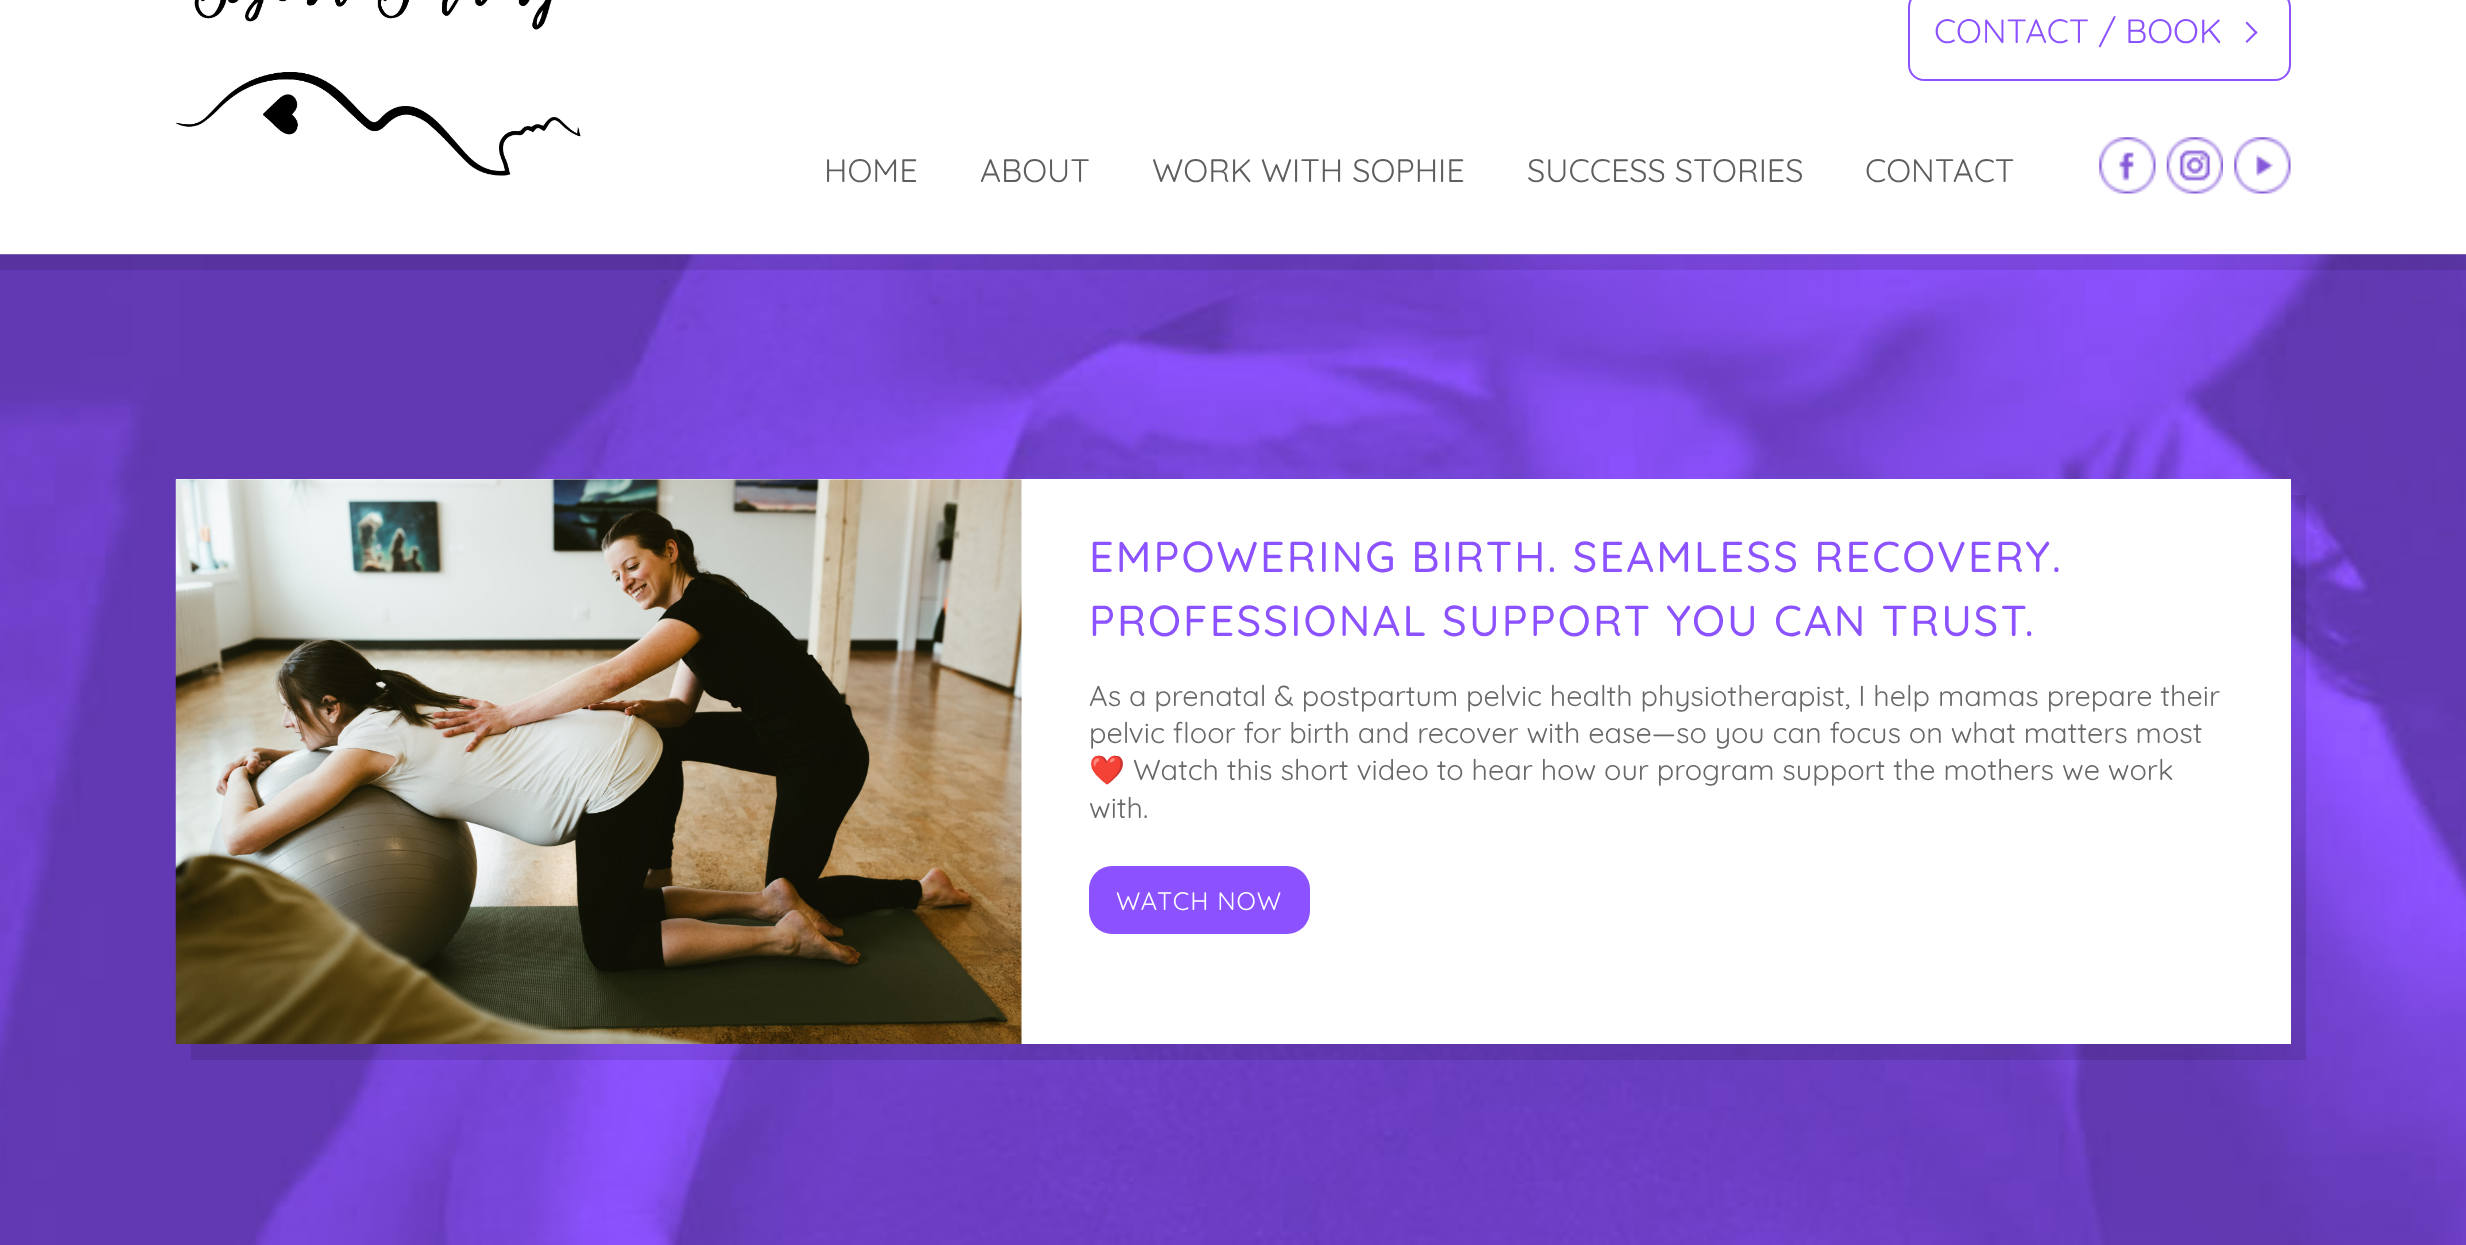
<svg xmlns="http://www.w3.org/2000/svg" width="2466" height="1245">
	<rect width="100%" height="100%" fill="#FFFFFF" />
	<image x="0" y="254" width="2466" height="991" href="assets/img5.png" />
	<rect x="0" y="254" width="2466" height="16" fill="#000000" fill-opacity="0.1" />
	<image x="175" y="0" width="406" height="176" href="assets/img1.png" />
	<rect x="1909" y="-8" width="381" height="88" rx="15" fill="none" stroke="#8C52FF" stroke-width="2" />
	<text x="1934" y="43" font-family="Quicksand" font-size="33.75" fill="#8C52FF">CONTACT / BOOK</text>
	<path d="M2247 21.5L2257.5 32.5L2256 34L2245.5 23Z" fill="#8C52FF" />
	<path d="M2256 31L2257.5 32.5L2247 43L2245.5 41.5Z" fill="#8C52FF" />
	<g font-family="Quicksand" font-size="32.5" fill="#5E5E5E">
		<text x="824" y="182">HOME</text>
		<text x="980" y="182">ABOUT</text>
		<text x="1152" y="182">WORK WITH SOPHIE</text>
		<text x="1527" y="182">SUCCESS STORIES</text>
		<text x="1865" y="182">CONTACT</text>
	</g>
	<image x="2099" y="137" width="57" height="57" href="assets/img2.png" />
	<image x="2166" y="137" width="57" height="57" href="assets/img3.png" />
	<image x="2234" y="137" width="57" height="57" href="assets/img4.png" />
	<path d="M191 1044V1060H2306V495H2290V1044Z" fill="#000000" fill-opacity="0.1" />
	<rect x="176" y="479" width="2115" height="565" fill="#FFFFFF" />
	<image x="175" y="479" width="847" height="565" href="assets/img6.png" />
	<g font-family="Quicksand" font-size="43.2" font-weight="500" letter-spacing="2.15" fill="#8C52FF">
		<text x="1089" y="572">EMPOWERING BIRTH. SEAMLESS RECOVERY.</text>
		<text x="1089" y="636">PROFESSIONAL SUPPORT YOU CAN TRUST.</text>
	</g>
	<g font-family="Quicksand" font-size="28.8" fill="#686868">
		<text x="1089" y="706">As a prenatal &amp; postpartum pelvic health physiotherapist, I help mamas prepare their</text>
		<text x="1089" y="743">pelvic floor for birth and recover with ease—so you can focus on what matters most</text>
	</g>
	<text x="1089" y="780" font-family="Noto Color Emoji" font-size="28.8" fill="#686868">❤️</text>
	<g font-family="Quicksand" font-size="28.8" fill="#686868">
		<text x="1133" y="780">Watch this short video to hear how our program support the mothers we work</text>
		<text x="1089" y="818">with.</text>
	</g>
	<rect x="1089" y="866" width="221" height="68" rx="23" fill="#8C52FF" />
	<text x="1116" y="910" font-family="Quicksand" font-size="25.25" letter-spacing="1" fill="#FFFFFF">WATCH NOW</text>
</svg>
